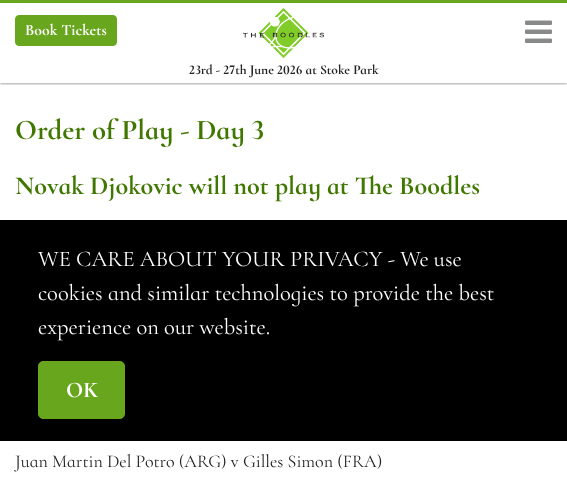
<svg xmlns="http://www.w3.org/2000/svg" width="567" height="501">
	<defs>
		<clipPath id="clip1"><rect x="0" y="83" width="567" height="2" /></clipPath>
	</defs>
	<rect width="100%" height="100%" fill="#FFFFFF" />
	<g clip-path="url(#clip1)">
		<rect x="0" y="1" width="567" height="83" fill="#000000" fill-opacity="0.24" filter="blur(1px)" />
		<rect x="0" y="1" width="567" height="83" fill="#000000" fill-opacity="0.12" filter="blur(1.5px)" />
	</g>
	<rect x="0" y="0" width="567" height="3" fill="#67A61D" />
	<rect x="15.5" y="15.5" width="101" height="30" rx="3.5" fill="#67A61D" stroke="#67A61D" />
	<text x="25" y="35" font-family="Cormorant Infant" font-size="15.75" font-weight="700" fill="#FFFFFF">Book Tickets</text>
	<image x="243" y="8" width="81" height="50" href="assets/img1.png" />
	<image x="525" y="20" width="27" height="23" href="assets/img2.png" />
	<text x="189" y="74" font-family="Cormorant Infant" font-size="13.5" font-weight="700" fill="#222423">23rd - 27th June 2026 at Stoke Park</text>
	<text x="15" y="139" font-family="Cormorant Infant" font-size="28.75" font-weight="700" fill="#407700">Order of Play - Day 3</text>
	<text x="15" y="194" font-family="Cormorant Infant" font-size="26.1" font-weight="700" fill="#407700">Novak Djokovic will not play at The Boodles</text>
	<text x="15" y="467" font-family="Cormorant Infant" font-size="18" fill="#222423">Juan Martin Del Potro (ARG) v Gilles Simon (FRA)</text>
	<rect x="0" y="220" width="567" height="221" fill="#000000" />
	<g font-family="Cormorant Infant" font-size="22.5" fill="#FFFFFF">
		<text x="38" y="266">WE CARE ABOUT YOUR PRIVACY - We use</text>
		<text x="38" y="300">cookies and similar technologies to provide the best</text>
		<text x="38" y="334">experience on our website.</text>
	</g>
	<rect x="38.5" y="361.5" width="86" height="57" rx="4.5" fill="#67A61D" stroke="#67A61D" />
	<text x="66" y="397" font-family="Cormorant Infant" font-size="22.5" font-weight="700" fill="#FFFFFF">OK</text>
</svg>
